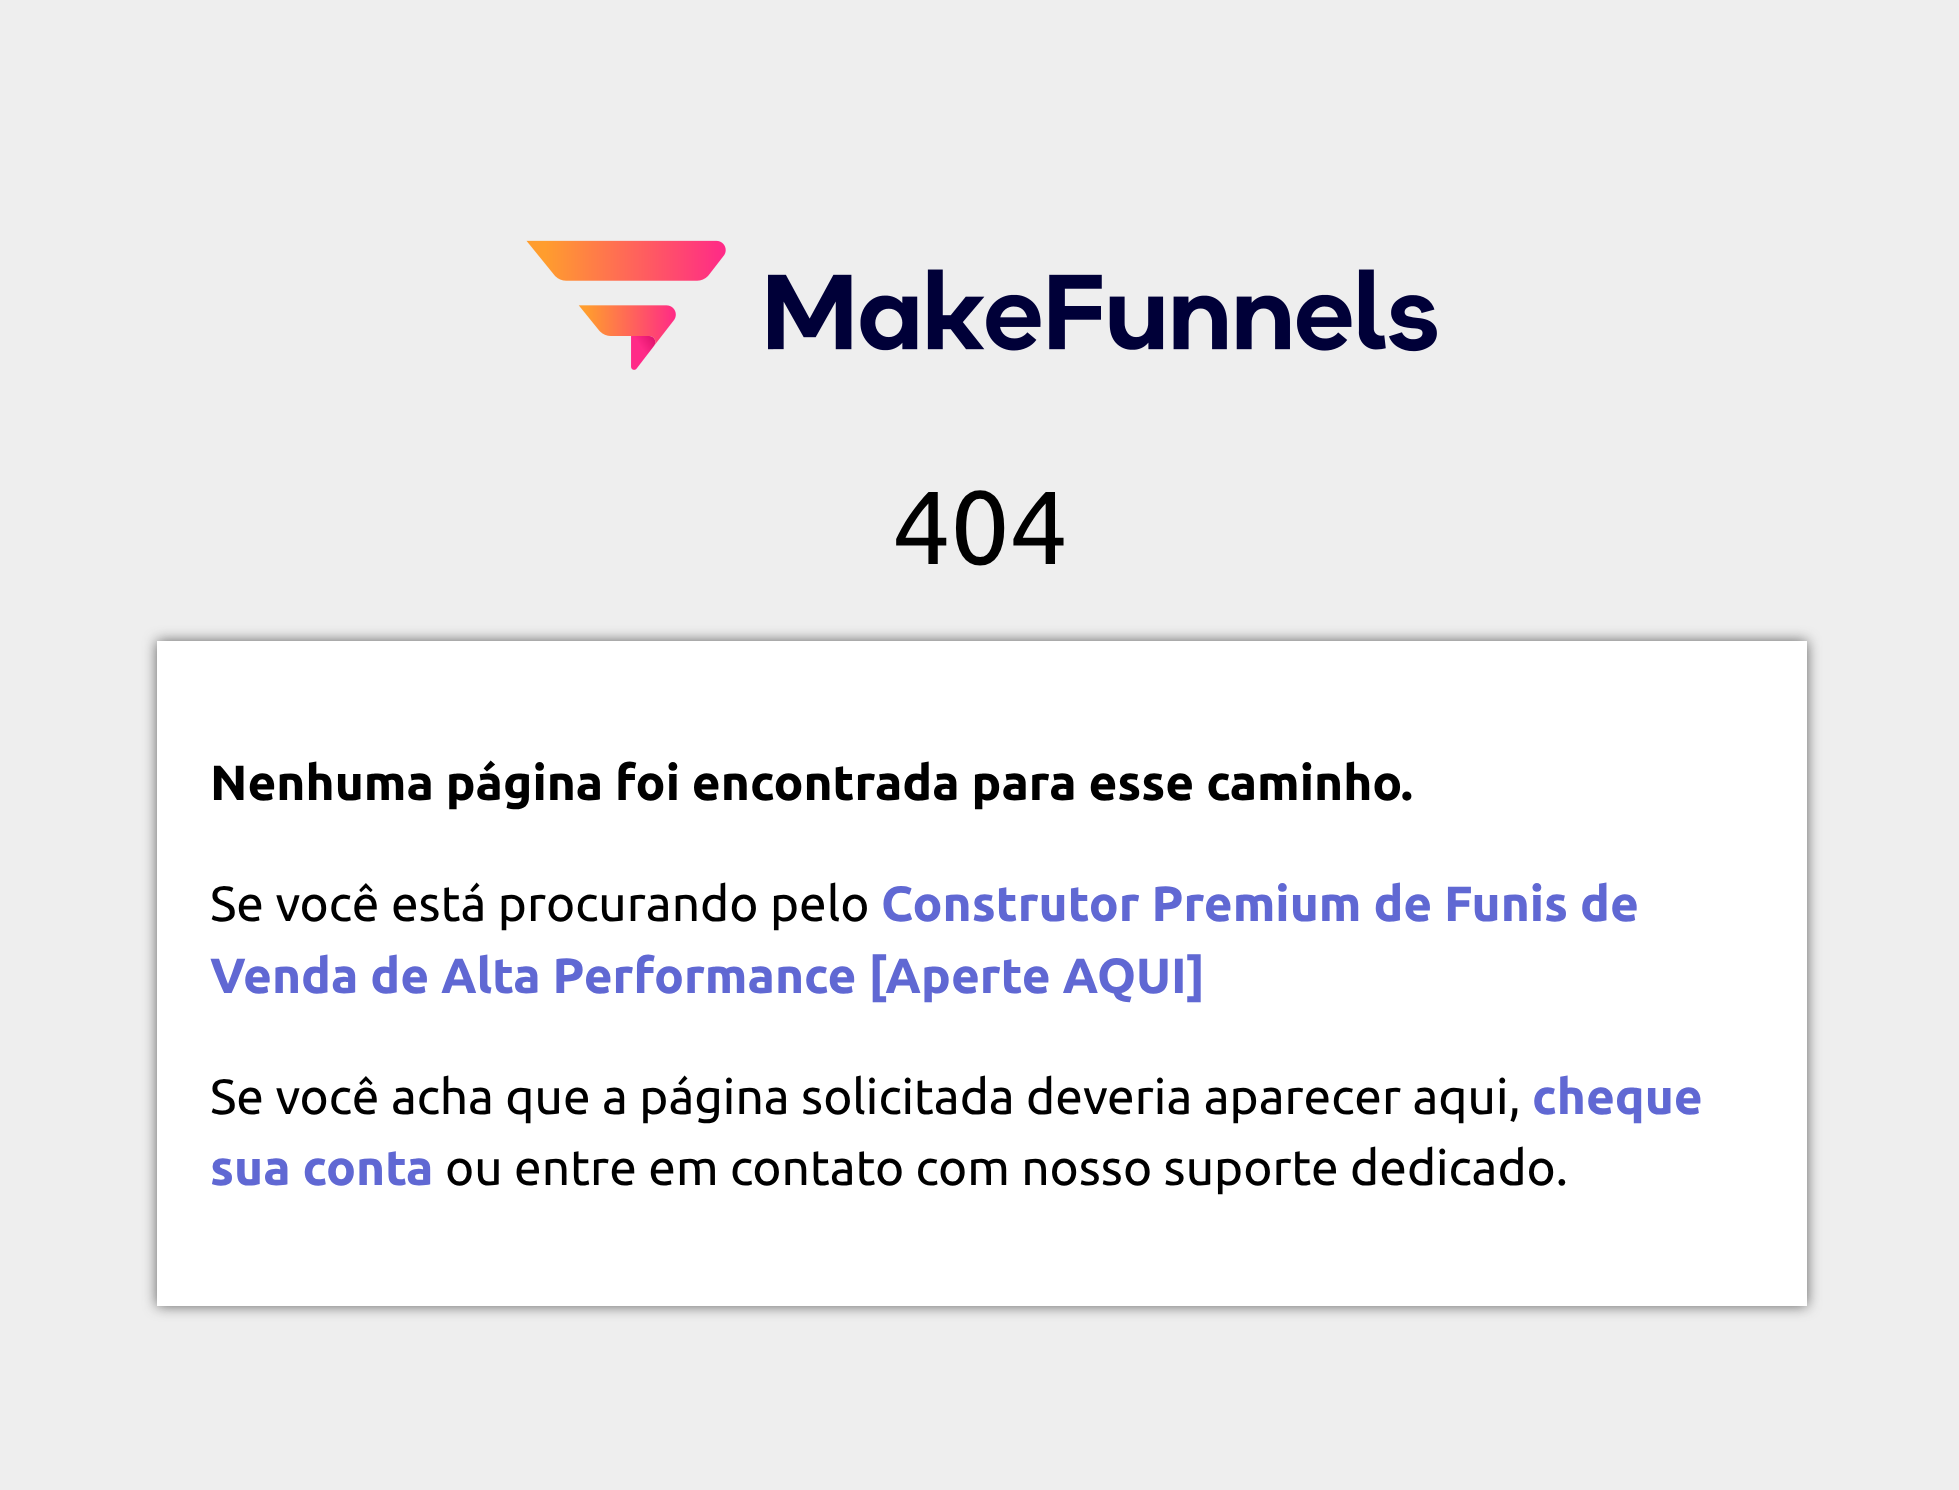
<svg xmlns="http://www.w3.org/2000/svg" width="1959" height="1490">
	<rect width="100%" height="100%" fill="#EEEEEE" />
	<image x="526" y="240" width="911" height="130" href="assets/img1.png" />
	<text x="892" y="564" font-family="Ubuntu" font-size="104" fill="#000000">404</text>
	<rect x="157" y="641" width="1650" height="665" fill="#323232" fill-opacity="0.75" filter="blur(7px)" />
	<rect x="157" y="641" width="1650" height="665" fill="#FFFFFF" />
	<text x="210" y="800" font-family="Ubuntu" font-size="49.5" font-weight="700" fill="#000000">Nenhuma página foi encontrada para esse caminho.</text>
	<text x="210" y="921" font-family="Ubuntu" font-size="49.5" fill="#000000">Se você está procurando pelo</text>
	<g font-family="Ubuntu" font-size="49.5" font-weight="700" fill="#6068D3">
		<text x="881" y="921">Construtor Premium de Funis de</text>
		<text x="210" y="993">Venda de Alta Performance [Aperte AQUI]</text>
	</g>
	<text x="210" y="1114" font-family="Ubuntu" font-size="49.5" fill="#000000">Se você acha que a página solicitada deveria aparecer aqui,</text>
	<g font-family="Ubuntu" font-size="49.5" font-weight="700" fill="#6068D3">
		<text x="1532" y="1114">cheque</text>
		<text x="210" y="1185">sua conta</text>
	</g>
	<text x="445" y="1185" font-family="Ubuntu" font-size="49.5" fill="#000000">ou entre em contato com nosso suporte dedicado.</text>
</svg>
